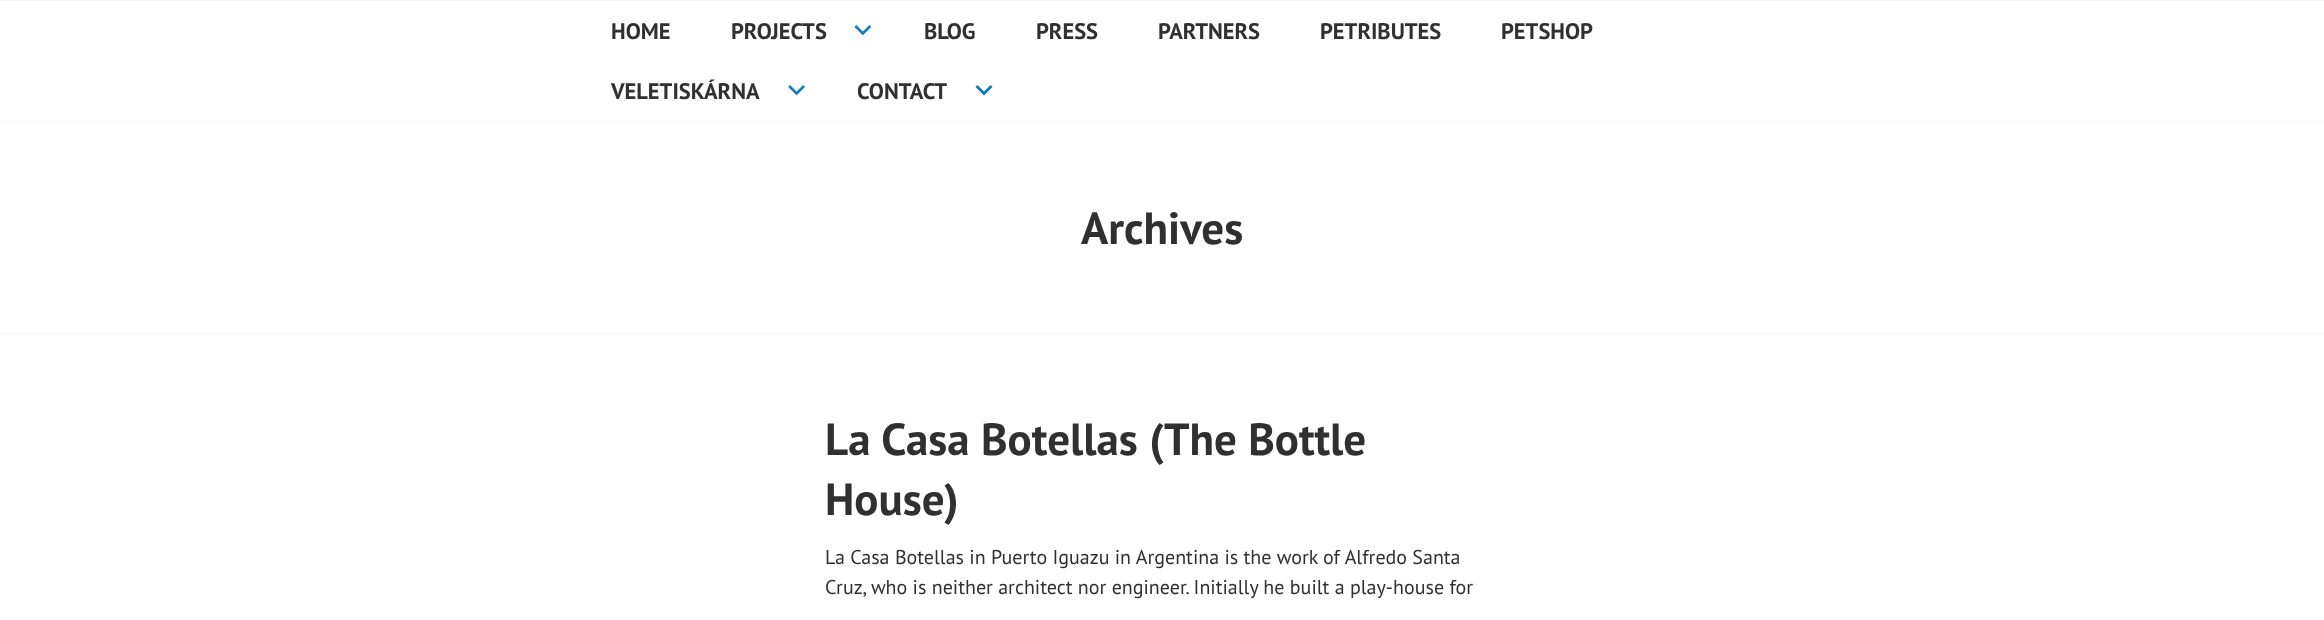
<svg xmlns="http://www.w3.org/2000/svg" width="2324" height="620">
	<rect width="100%" height="100%" fill="#FFFFFF" />
	<rect x="0" y="121" width="2324" height="1" fill="#F8F8F8" />
	<rect x="0" y="0" width="2324" height="1" fill="#F8F8F8" />
	<g font-family="PT Sans" font-size="22.5" font-weight="700" fill="#303030">
		<text x="611" y="39">HOME</text>
		<text x="731" y="39">PROJECTS</text>
	</g>
	<image x="854" y="25" width="18" height="11" href="assets/img1.png" />
	<g font-family="PT Sans" font-size="22.5" font-weight="700" fill="#303030">
		<text x="924" y="39">BLOG</text>
		<text x="1036" y="39">PRESS</text>
		<text x="1158" y="39">PARTNERS</text>
		<text x="1320" y="39">PETRIBUTES</text>
		<text x="1501" y="39">PETSHOP</text>
		<text x="611" y="99">VELETISKÁRNA</text>
	</g>
	<image x="788" y="85" width="17" height="11" href="assets/img2.png" />
	<text x="857" y="99" font-family="PT Sans" font-size="22.5" font-weight="700" fill="#303030">CONTACT</text>
	<path d="M990.5 85L992.5 87L984 95.5L975.5 87L977.5 85L984 91.5Z" fill="#1279BE" />
	<rect x="0" y="333" width="2324" height="1" fill="#F8F8F8" />
	<g font-family="PT Sans" font-size="45" font-weight="700" fill="#303030">
		<text x="1081" y="244">Archives</text>
		<text x="825" y="455">La Casa Botellas (The Bottle</text>
		<text x="825" y="515">House)</text>
	</g>
	<g font-family="PT Sans" font-size="20" fill="#303030">
		<text x="825" y="564">La Casa Botellas in Puerto Iguazu in Argentina is the work of Alfredo Santa</text>
		<text x="825" y="594">Cruz, who is neither architect nor engineer. Initially he built a play-house for</text>
	</g>
</svg>
